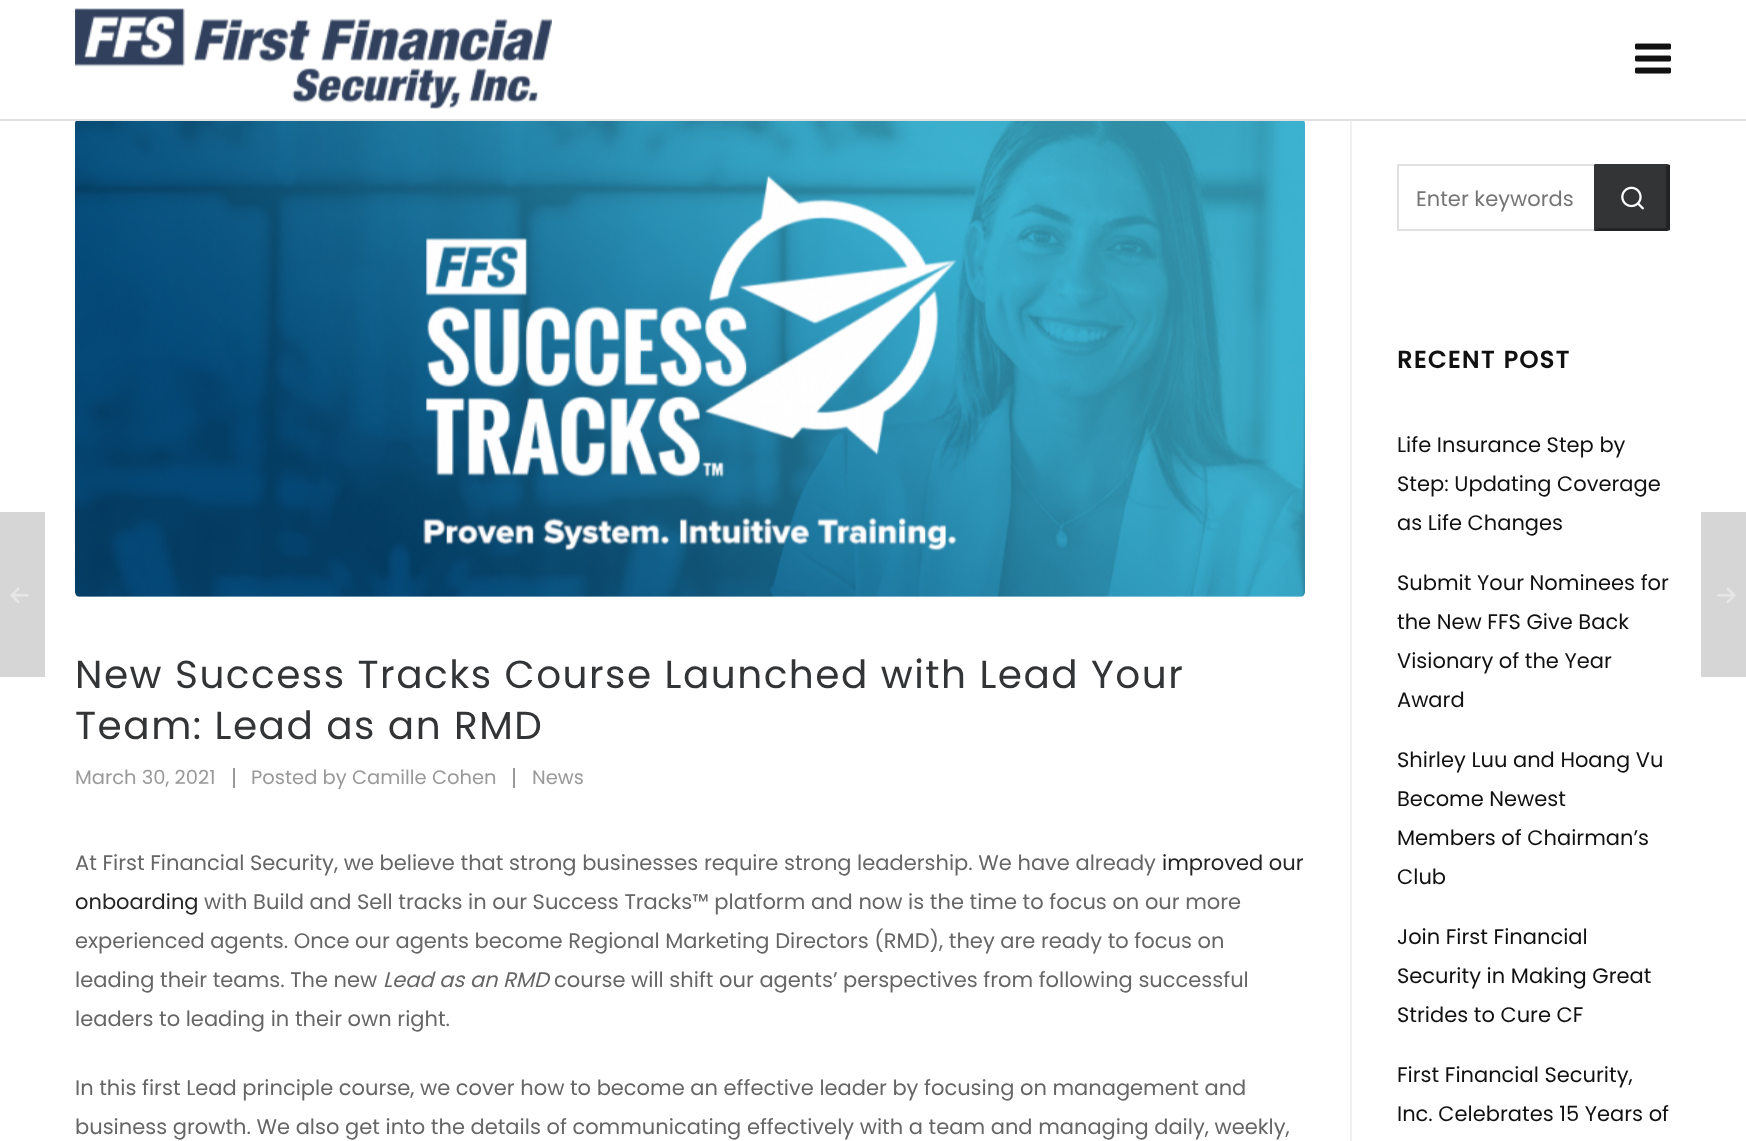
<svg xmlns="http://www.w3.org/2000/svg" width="1746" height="1141">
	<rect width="100%" height="100%" fill="#FFFFFF" />
	<rect x="1350" y="119" width="2" height="1022" fill="#F0F0F0" />
	<rect x="0" y="119" width="1746" height="2" fill="#E1E1E1" />
	<image x="75" y="8" width="477" height="101" href="assets/img1.png" />
	<image x="1635" y="43" width="36" height="31" href="assets/img2.png" />
	<image x="75" y="121" width="1230" height="476" href="assets/img3.png" />
	<g font-family="Poppins" font-size="39" letter-spacing="1.5" fill="#323436">
		<text x="75" y="688">New Success Tracks Course Launched with Lead Your</text>
		<text x="75" y="739">Team: Lead as an RMD</text>
	</g>
	<text x="75" y="784" font-family="Poppins" font-size="19.5" fill="#999999">March 30, 2021</text>
	<rect x="233" y="768" width="2" height="20" fill="#999999" />
	<text x="251" y="784" font-family="Poppins" font-size="19.5" fill="#999999">Posted by Camille Cohen</text>
	<rect x="513" y="768" width="2" height="20" fill="#999999" />
	<text x="532" y="784" font-family="Poppins" font-size="19.5" fill="#999999">News</text>
	<text x="75" y="870" font-family="Poppins" font-size="21" fill="#666666">At First Financial Security, we believe that strong businesses require strong leadership. We have already</text>
	<g font-family="Poppins" font-size="21" fill="#252525">
		<text x="1162" y="870">improved our</text>
		<text x="75" y="909">onboarding</text>
	</g>
	<g font-family="Poppins" font-size="21" fill="#666666">
		<text x="204" y="909">with Build and Sell tracks in our Success Tracks™ platform and now is the time to focus on our more</text>
		<text x="75" y="948">experienced agents. Once our agents become Regional Marketing Directors (RMD), they are ready to focus on</text>
		<text x="75" y="987">leading their teams. The new</text>
	</g>
	<text x="383" y="987" font-family="Poppins" font-size="21" font-style="italic" fill="#666666">Lead as an RMD</text>
	<g font-family="Poppins" font-size="21" fill="#666666">
		<text x="554" y="987">course will shift our agents’ perspectives from following successful</text>
		<text x="75" y="1026">leaders to leading in their own right.</text>
		<text x="75" y="1095">In this first Lead principle course, we cover how to become an effective leader by focusing on management and</text>
		<text x="75" y="1134">business growth. We also get into the details of communicating effectively with a team and managing daily, weekly,</text>
	</g>
	<rect x="1398" y="165" width="271" height="65" fill="none" stroke="#E0E0E0" stroke-width="2" />
	<text x="1416" y="206" font-family="Poppins" font-size="21" fill="#757575">Enter keywords</text>
	<path d="M1595 164H1667C1668.5 164 1670 165.5 1670 167V228C1670 229.5 1668.5 231 1667 231H1595Z" fill="#323436" />
	<path d="M1598 166H1666V167L1668 165L1666 164H1595L1598 167Z" fill="#323436" />
	<path d="M1670 230H1669L1666 228V167L1668 165H1670Z" fill="#212324" />
	<path d="M1594 231H1666L1669 230L1666 228H1598Z" fill="#212324" />
	<path d="M1594 231L1598 228V167L1594 164Z" fill="#323436" />
	<image x="1621" y="186" width="23" height="24" href="assets/img4.png" />
	<text x="1397" y="368" font-family="Poppins" font-size="24" font-weight="700" letter-spacing="1.5" fill="#111111">RECENT POST</text>
	<g font-family="Poppins" font-size="21" fill="#111111">
		<text x="1397" y="452">Life Insurance Step by</text>
		<text x="1397" y="491">Step: Updating Coverage</text>
		<text x="1397" y="530">as Life Changes</text>
		<text x="1397" y="590">Submit Your Nominees for</text>
		<text x="1397" y="629">the New FFS Give Back</text>
		<text x="1397" y="668">Visionary of the Year</text>
		<text x="1397" y="707">Award</text>
		<text x="1397" y="767">Shirley Luu and Hoang Vu</text>
		<text x="1397" y="806">Become Newest</text>
		<text x="1397" y="845">Members of Chairman’s</text>
		<text x="1397" y="884">Club</text>
		<text x="1397" y="944">Join First Financial</text>
		<text x="1397" y="983">Security in Making Great</text>
		<text x="1397" y="1022">Strides to Cure CF</text>
		<text x="1397" y="1082">First Financial Security,</text>
		<text x="1397" y="1121">Inc. Celebrates 15 Years of</text>
	</g>
	<rect x="0" y="512" width="45" height="165" fill="#D6D6D6" />
	<image x="10" y="587" width="19" height="16" href="assets/img5.png" />
	<rect x="1701" y="512" width="45" height="165" fill="#D6D6D6" />
	<image x="1717" y="587" width="19" height="16" href="assets/img6.png" />
</svg>
